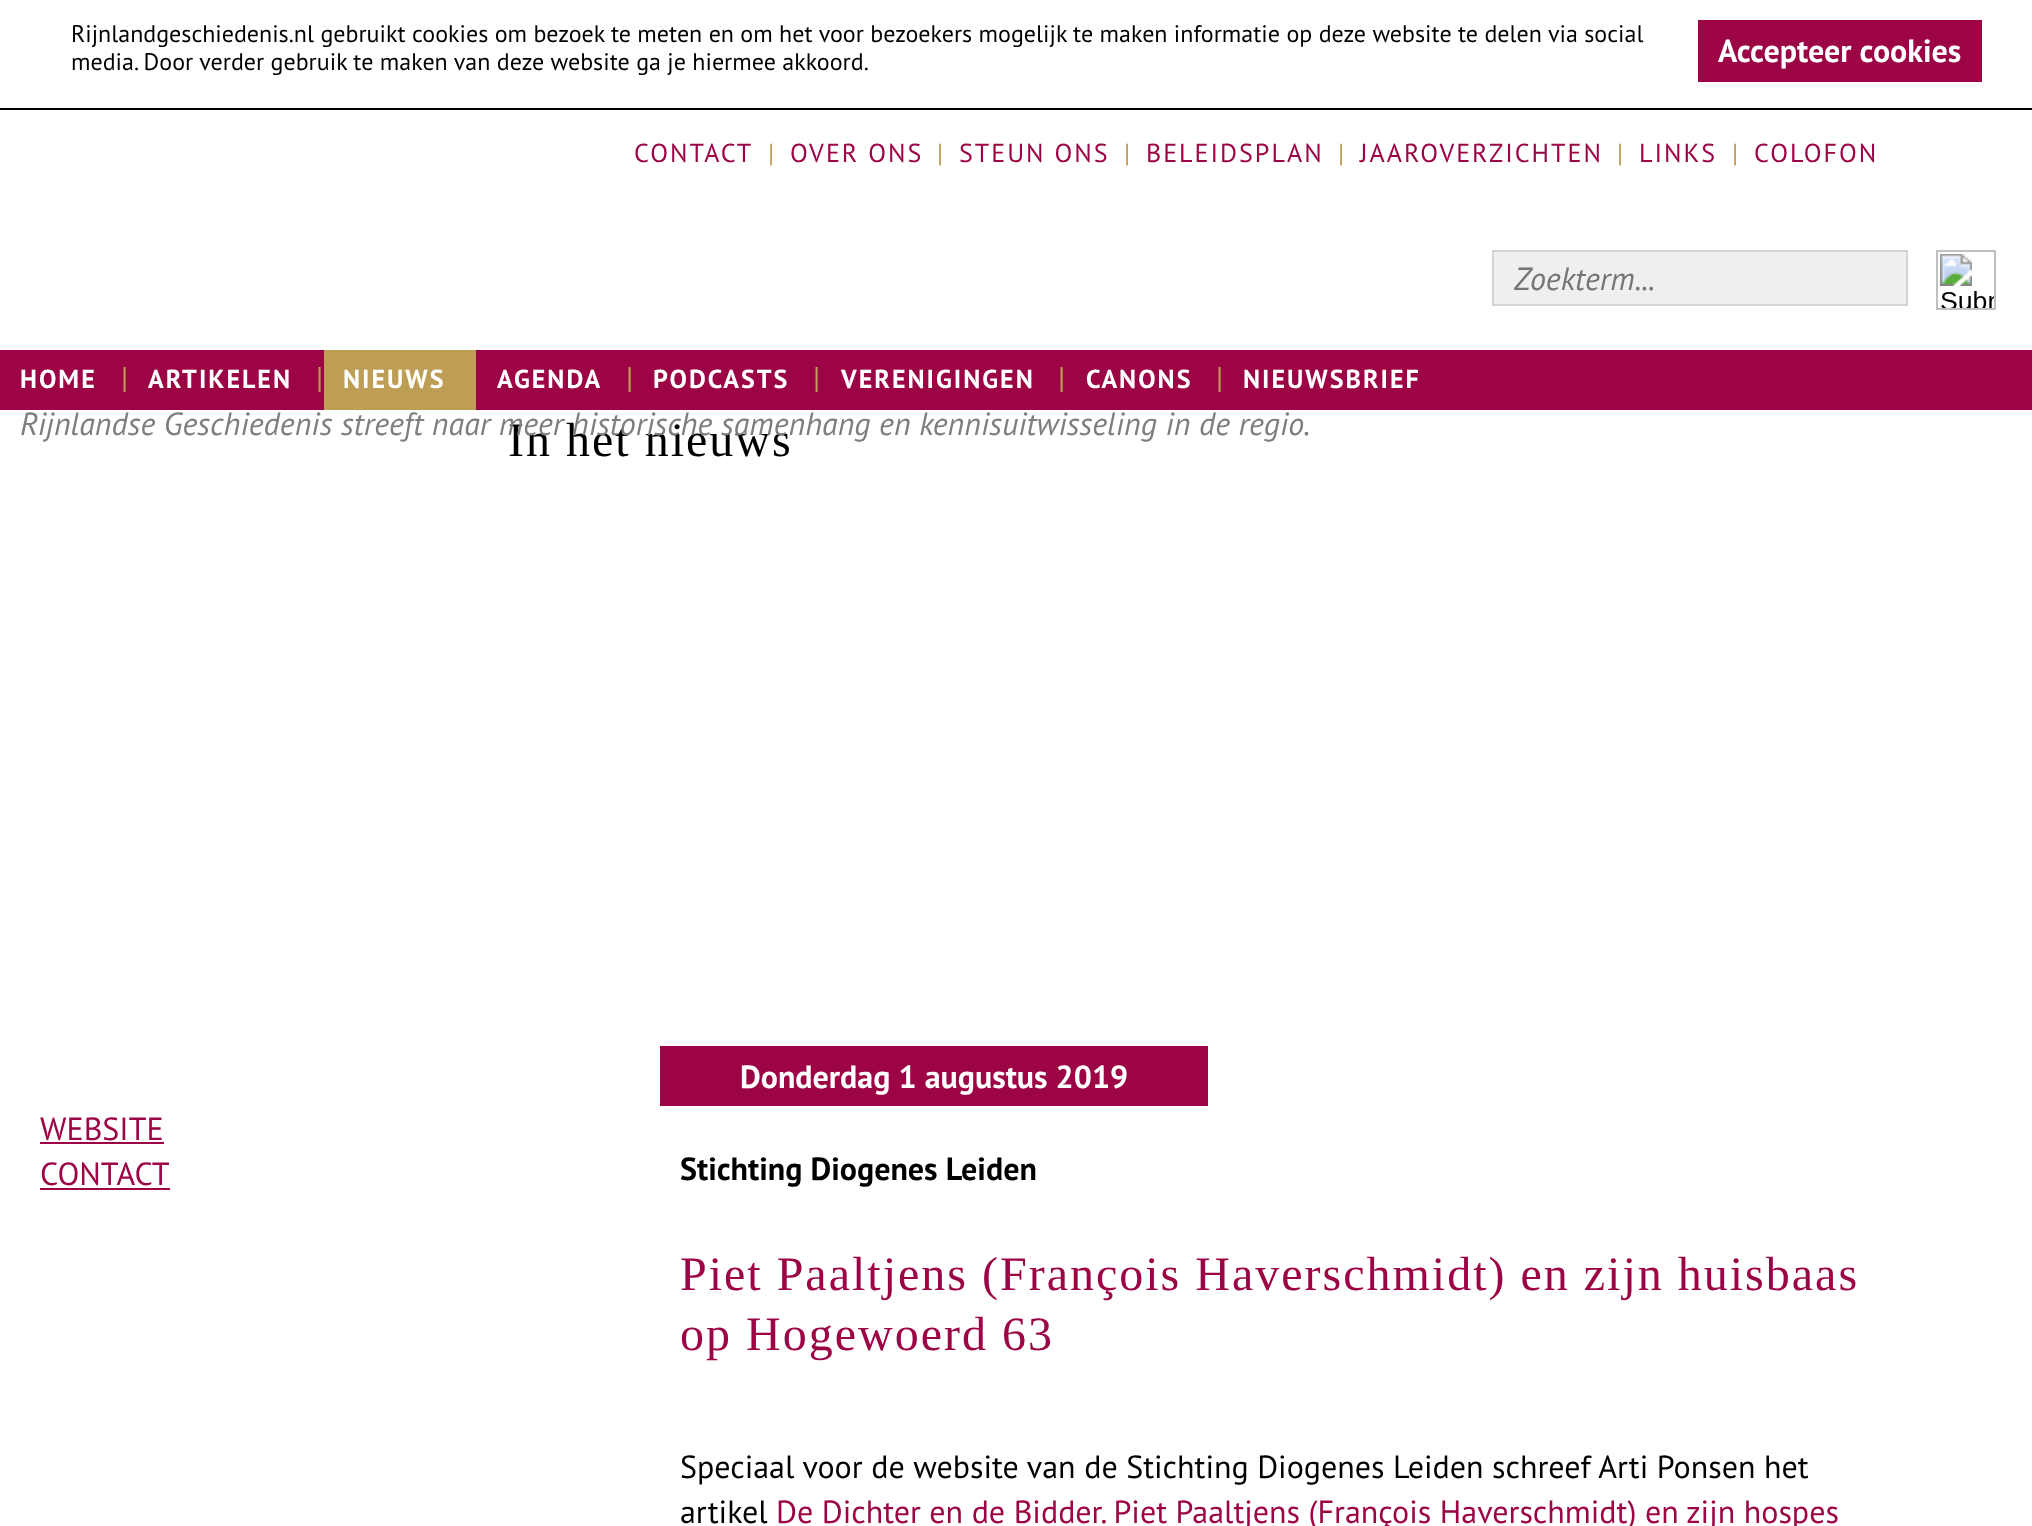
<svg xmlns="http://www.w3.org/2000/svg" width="2032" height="1526">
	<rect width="100%" height="100%" fill="#FFFFFF" />
	<rect x="0" y="108" width="2032" height="2" fill="#000000" />
	<g font-family="PT Sans" font-size="24" fill="#000000">
		<text x="71" y="42">Rijnlandgeschiedenis.nl gebruikt cookies om bezoek te meten en om het voor bezoekers mogelijk te maken informatie op deze website te delen via social</text>
		<text x="71" y="70">media. Door verder gebruik te maken van deze website ga je hiermee akkoord.</text>
	</g>
	<rect x="1698" y="20" width="284" height="62" fill="#9C0445" />
	<text x="1718" y="62" font-family="PT Sans" font-size="32" font-weight="700" fill="#FFFFFF">Accepteer cookies</text>
	<text x="634" y="162" font-family="PT Sans" font-size="26" letter-spacing="2" fill="#9C0445">CONTACT</text>
	<text x="768" y="162" font-family="PT Sans" font-size="26" letter-spacing="2" fill="#BE9D55">|</text>
	<text x="790" y="162" font-family="PT Sans" font-size="26" letter-spacing="2" fill="#9C0445">OVER ONS</text>
	<text x="937" y="162" font-family="PT Sans" font-size="26" letter-spacing="2" fill="#BE9D55">|</text>
	<text x="959" y="162" font-family="PT Sans" font-size="26" letter-spacing="2" fill="#9C0445">STEUN ONS</text>
	<text x="1124" y="162" font-family="PT Sans" font-size="26" letter-spacing="2" fill="#BE9D55">|</text>
	<text x="1146" y="162" font-family="PT Sans" font-size="26" letter-spacing="2" fill="#9C0445">BELEIDSPLAN</text>
	<text x="1338" y="162" font-family="PT Sans" font-size="26" letter-spacing="2" fill="#BE9D55">|</text>
	<text x="1360" y="162" font-family="PT Sans" font-size="26" letter-spacing="2" fill="#9C0445">JAAROVERZICHTEN</text>
	<text x="1617" y="162" font-family="PT Sans" font-size="26" letter-spacing="2" fill="#BE9D55">|</text>
	<text x="1639" y="162" font-family="PT Sans" font-size="26" letter-spacing="2" fill="#9C0445">LINKS</text>
	<text x="1732" y="162" font-family="PT Sans" font-size="26" letter-spacing="2" fill="#BE9D55">|</text>
	<text x="1754" y="162" font-family="PT Sans" font-size="26" letter-spacing="2" fill="#9C0445">COLOFON</text>
	<rect x="1493" y="251" width="414" height="54" fill="#EFEFF0" stroke="#D4D4D8" stroke-width="2" />
	<text x="1514" y="290" font-family="PT Sans" font-size="32" font-style="italic" fill="#757575">Zoekterm...</text>
	<image x="1936" y="250" width="60" height="60" href="assets/img1.png" />
	<text x="508" y="456" font-family="Liberation Serif" font-size="48" letter-spacing="2" fill="#000000">In het nieuws</text>
	<text x="20" y="435" font-family="PT Sans" font-size="32" font-style="italic" fill="#7E7E7E">Rijnlandse Geschiedenis streeft naar meer historische samenhang en kennisuitwisseling in de regio.</text>
	<rect x="0" y="350" width="2032" height="60" fill="#9C0445" />
	<text x="20" y="388" font-family="PT Sans" font-size="26" font-weight="700" letter-spacing="2" fill="#FFFFFF">HOME</text>
	<text x="121" y="388" font-family="PT Sans" font-size="30" fill="#BE9D55">|</text>
	<text x="148" y="388" font-family="PT Sans" font-size="26" font-weight="700" letter-spacing="2" fill="#FFFFFF">ARTIKELEN</text>
	<text x="316" y="388" font-family="PT Sans" font-size="30" fill="#BE9D55">|</text>
	<rect x="324" y="350" width="152" height="60" fill="#BE9D55" />
	<g font-family="PT Sans" font-size="26" font-weight="700" letter-spacing="2" fill="#FFFFFF">
		<text x="343" y="388">NIEUWS</text>
		<text x="497" y="388">AGENDA</text>
	</g>
	<text x="626" y="388" font-family="PT Sans" font-size="30" fill="#BE9D55">|</text>
	<text x="653" y="388" font-family="PT Sans" font-size="26" font-weight="700" letter-spacing="2" fill="#FFFFFF">PODCASTS</text>
	<text x="813" y="388" font-family="PT Sans" font-size="30" fill="#BE9D55">|</text>
	<text x="841" y="388" font-family="PT Sans" font-size="26" font-weight="700" letter-spacing="2" fill="#FFFFFF">VERENIGINGEN</text>
	<text x="1058" y="388" font-family="PT Sans" font-size="30" fill="#BE9D55">|</text>
	<text x="1086" y="388" font-family="PT Sans" font-size="26" font-weight="700" letter-spacing="2" fill="#FFFFFF">CANONS</text>
	<text x="1216" y="388" font-family="PT Sans" font-size="30" fill="#BE9D55">|</text>
	<text x="1243" y="388" font-family="PT Sans" font-size="26" font-weight="700" letter-spacing="2" fill="#FFFFFF">NIEUWSBRIEF</text>
	<rect x="660" y="1046" width="548" height="60" fill="#9C0445" />
	<text x="740" y="1088" font-family="PT Sans" font-size="32" font-weight="700" fill="#FFFFFF">Donderdag 1 augustus 2019</text>
	<text x="40" y="1140" font-family="PT Sans" font-size="32" fill="#9C0445">WEBSITE</text>
	<rect x="40" y="1142" width="124" height="2" fill="#9C0445" />
	<text x="40" y="1185" font-family="PT Sans" font-size="32" fill="#9C0445">CONTACT</text>
	<rect x="40" y="1188" width="130" height="2" fill="#9C0445" />
	<text x="680" y="1180" font-family="PT Sans" font-size="32" font-weight="700" fill="#000000">Stichting Diogenes Leiden</text>
	<g font-family="Liberation Serif" font-size="48" letter-spacing="2" fill="#9C0445">
		<text x="680" y="1290">Piet Paaltjens (François Haverschmidt) en zijn huisbaas</text>
		<text x="680" y="1350">op Hogewoerd 63</text>
	</g>
	<g font-family="PT Sans" font-size="32" fill="#000000">
		<text x="680" y="1478">Speciaal voor de website van de Stichting Diogenes Leiden schreef Arti Ponsen het</text>
		<text x="680" y="1523">artikel</text>
	</g>
	<text x="776" y="1523" font-family="PT Sans" font-size="32" fill="#9C0445">De Dichter en de Bidder. Piet Paaltjens (François Haverschmidt) en zijn hospes</text>
</svg>
